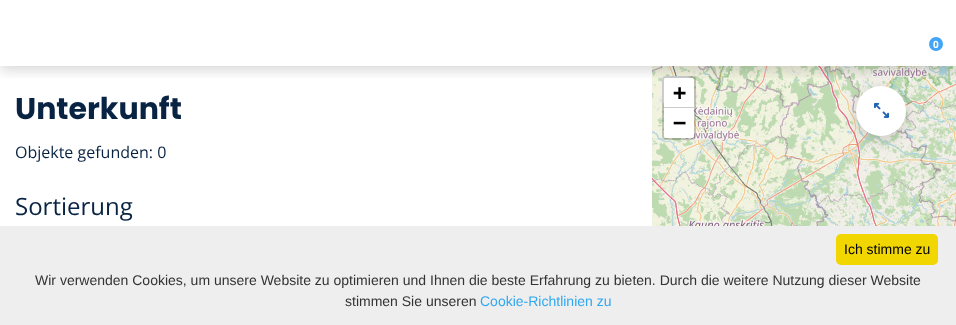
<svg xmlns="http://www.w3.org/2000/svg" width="956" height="325">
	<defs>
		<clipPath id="clip1"><rect x="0" y="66" width="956" height="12" /></clipPath>
	</defs>
	<rect width="100%" height="100%" fill="#FFFFFF" />
	<image x="652" y="66" width="41" height="160" href="assets/img1.png" />
	<image x="693" y="66" width="256" height="160" href="assets/img2.png" />
	<image x="949" y="66" width="7" height="160" href="assets/img3.png" />
	<rect x="662" y="76" width="27" height="27" rx="3" fill="#FFFFFF" />
	<rect x="663" y="77" width="32" height="62" rx="3" fill="none" stroke="#000000" stroke-opacity="0.2" stroke-width="2" />
	<path d="M666 78H692C693 78 694 79 694 80V108H664V80C664 79 665 78 666 78Z" fill="#FFFFFF" />
	<rect x="856" y="90" width="50" height="50" rx="25" fill="#000000" fill-opacity="0.16" filter="blur(7px)" />
	<circle cx="881" cy="111" r="25" fill="#FFFFFF" />
	<g clip-path="url(#clip1)">
		<rect x="0" y="4" width="956" height="66" fill="#000000" fill-opacity="0.16" filter="blur(7px)" />
	</g>
	<circle cx="936" cy="44" r="7" fill="#42A5F5" />
	<text x="933" y="48" font-family="Open Sans" font-size="10" font-weight="700" fill="#FFFFFF">0</text>
	<text x="15" y="119" font-family="Poppins" font-size="30" font-weight="700" fill="#092443">Unterkunft</text>
	<text x="15" y="158" font-family="Open Sans" font-size="16" fill="#092443">Objekte gefunden: 0</text>
	<text x="15" y="215" font-family="Open Sans" font-size="24" fill="#092443">Sortierung</text>
	<rect x="664" y="107" width="30" height="1" fill="#CCCCCC" />
	<text x="673" y="100" font-family="DejaVu Sans Mono" font-size="22" font-weight="700" fill="#000000">+</text>
	<path d="M664 108H694V136C694 137 693 138 692 138H666C665 138 664 137 664 136Z" fill="#FFFFFF" />
	<text x="673" y="130" font-family="DejaVu Sans Mono" font-size="22" font-weight="700" fill="#000000">−</text>
	<image x="874" y="102" width="15" height="16" href="assets/img4.png" />
	<rect x="0" y="226" width="956" height="99" fill="#EEEEEE" />
	<rect x="836" y="234" width="102" height="31" rx="5" fill="#F1D600" />
	<text x="844" y="254" font-family="Liberation Sans" font-size="14" fill="#000000">Ich stimme zu</text>
	<g font-family="Liberation Sans" font-size="14" fill="#333333">
		<text x="35" y="285">Wir verwenden Cookies, um unsere Website zu optimieren und Ihnen die beste Erfahrung zu bieten. Durch die weitere Nutzung dieser Website</text>
		<text x="345" y="306">stimmen Sie unseren</text>
	</g>
	<text x="480" y="306" font-family="Liberation Sans" font-size="14" fill="#31A8F0">Cookie-Richtlinien zu</text>
</svg>
